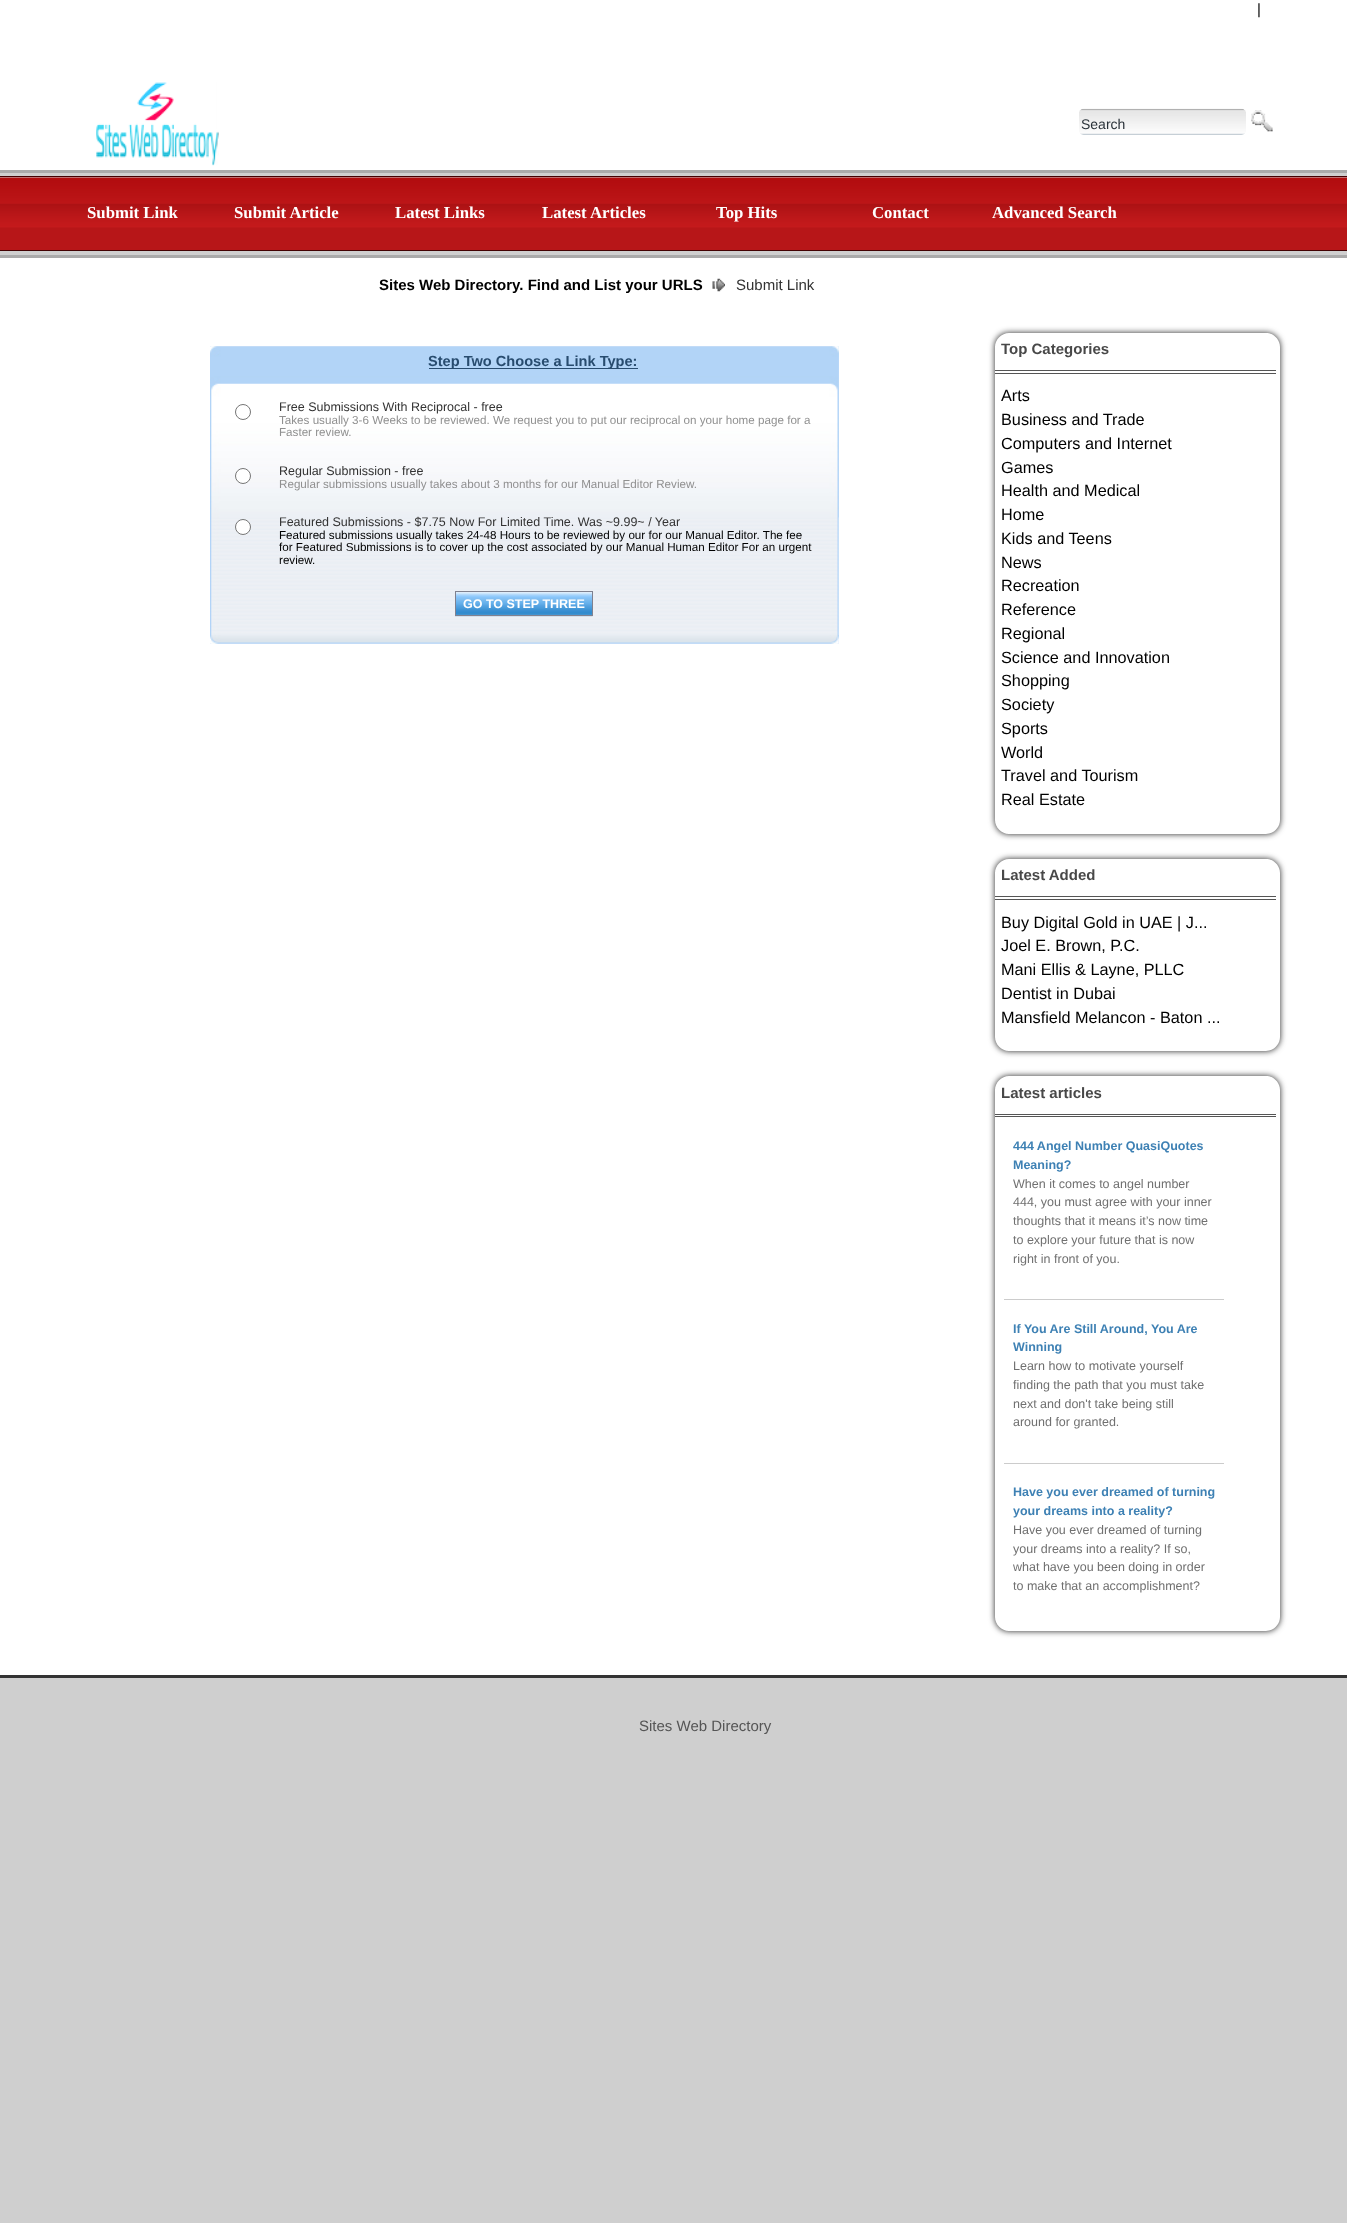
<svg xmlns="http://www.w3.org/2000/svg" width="1347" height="2223">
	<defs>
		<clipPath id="clip1"><path d="M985 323H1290V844H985ZM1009 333H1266C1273.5 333 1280 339.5 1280 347V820C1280 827.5 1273.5 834 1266 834H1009C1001.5 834 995 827.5 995 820V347C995 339.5 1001.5 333 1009 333Z" clip-rule="evenodd" /></clipPath>
		<clipPath id="clip2"><path d="M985 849H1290V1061H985ZM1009 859H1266C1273.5 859 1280 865.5 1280 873V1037C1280 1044.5 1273.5 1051 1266 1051H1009C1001.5 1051 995 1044.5 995 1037V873C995 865.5 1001.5 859 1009 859Z" clip-rule="evenodd" /></clipPath>
		<clipPath id="clip3"><path d="M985 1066H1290V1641H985ZM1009 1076H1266C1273.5 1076 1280 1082.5 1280 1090V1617C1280 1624.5 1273.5 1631 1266 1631H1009C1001.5 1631 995 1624.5 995 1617V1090C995 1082.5 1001.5 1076 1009 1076Z" clip-rule="evenodd" /></clipPath>
	</defs>
	<rect width="100%" height="100%" fill="#CFCFCF" />
	<rect x="0" y="0" width="1347" height="1675" fill="#FFFFFF" />
	<rect x="0" y="1675" width="1347" height="3" fill="#333333" />
	<text x="1257" y="14" font-family="Liberation Sans" font-size="15" fill="#000000">|</text>
	<image x="96" y="82" width="123" height="84" href="assets/img1.png" />
	<image x="1079" y="108" width="167" height="27" href="assets/img2.png" />
	<text x="1081" y="129" font-family="Liberation Sans" font-size="14" fill="#293138">Search</text>
	<image x="1251" y="110" width="22" height="22" href="assets/img3.png" />
	<rect x="0" y="173" width="1347" height="82" fill="#CFCFCF" />
	<rect x="0" y="170" width="1347" height="3" fill="#AAAAAA" />
	<rect x="0" y="255" width="1347" height="3" fill="#AAAAAA" />
	<rect x="0" y="227" width="1347" height="23" fill="#B71618" />
	<image x="0" y="177" width="1347" height="51" href="assets/img4.png" />
	<rect x="0" y="176" width="1347" height="1" fill="#430102" />
	<rect x="0" y="250" width="1347" height="1" fill="#430102" />
	<g font-family="Liberation Serif" font-size="16.75" font-weight="700" fill="#FFFFFF">
		<text x="87" y="218">Submit Link</text>
		<text x="234" y="218">Submit Article</text>
		<text x="395" y="218">Latest Links</text>
		<text x="542" y="218">Latest Articles</text>
		<text x="716" y="218">Top Hits</text>
		<text x="872" y="218">Contact</text>
		<text x="992" y="218">Advanced Search</text>
	</g>
	<text x="379" y="290" font-family="Liberation Sans" font-size="15" font-weight="700" fill="#000000">Sites Web Directory. Find and List your URLS</text>
	<image x="712" y="278" width="13" height="14" href="assets/img5.png" />
	<text x="736" y="290" font-family="Liberation Sans" font-size="15" fill="#333333">Submit Link</text>
	<image x="210" y="346" width="629" height="298" href="assets/img6.png" />
	<image x="210" y="346" width="629" height="172" href="assets/img7.png" />
	<rect x="429" y="368" width="209" height="1" fill="#284C6F" />
	<text x="428" y="366" font-family="Liberation Sans" font-size="14.6" font-weight="700" fill="#284C6F">Step Two Choose a Link Type:</text>
	<circle cx="243" cy="412" r="7.5" fill="none" stroke="#767676" />
	<text x="279" y="411" font-family="Liberation Sans" font-size="12.5" fill="#333333">Free Submissions With Reciprocal - free</text>
	<g font-family="Liberation Sans" font-size="11.65" fill="#909090">
		<text x="279" y="424">Takes usually 3-6 Weeks to be reviewed. We request you to put our reciprocal on your home page for a</text>
		<text x="279" y="436">Faster review.</text>
	</g>
	<circle cx="243" cy="476" r="7.5" fill="#FFFFFF" stroke="#767676" />
	<text x="279" y="475" font-family="Liberation Sans" font-size="12.5" fill="#333333">Regular Submission - free</text>
	<text x="279" y="488" font-family="Liberation Sans" font-size="11.65" fill="#909090">Regular submissions usually takes about 3 months for our Manual Editor Review.</text>
	<circle cx="243" cy="527" r="7.5" fill="#FFFFFF" stroke="#767676" />
	<text x="279" y="526" font-family="Liberation Sans" font-size="12.5" fill="#333333">Featured Submissions - $7.75 Now For Limited Time. Was ~9.99~ / Year</text>
	<g font-family="Liberation Sans" font-size="11.65" fill="#000000">
		<text x="279" y="539">Featured submissions usually takes 24-48 Hours to be reviewed by our for our Manual Editor. The fee</text>
		<text x="279" y="551">for Featured Submissions is to cover up the cost associated by our Manual Human Editor For an urgent</text>
		<text x="279" y="564">review.</text>
	</g>
	<image x="455" y="592" width="138" height="25" href="assets/img8.png" />
	<rect x="455.5" y="591.5" width="137" height="24" fill="none" stroke="#7F818F" />
	<text x="463" y="608" font-family="Liberation Sans" font-size="12.5" font-weight="700" fill="#FFFFFF">GO TO STEP THREE</text>
	<image x="210" y="635" width="629" height="9" href="assets/img9.png" />
	<g clip-path="url(#clip1)">
		<rect x="995" y="333" width="285" height="501" rx="14" fill="#252525" filter="blur(3px)" />
	</g>
	<rect x="995" y="370" width="281" height="1" fill="#555555" />
	<rect x="995" y="373" width="281" height="1" fill="#555555" />
	<text x="1001" y="354" font-family="Liberation Sans" font-size="15" font-weight="700" fill="#484848">Top Categories</text>
	<g font-family="Liberation Sans" font-size="16.25" fill="#000000">
		<text x="1001" y="401">Arts</text>
		<text x="1001" y="425">Business and Trade</text>
		<text x="1001" y="449">Computers and Internet</text>
		<text x="1001" y="473">Games</text>
		<text x="1001" y="496">Health and Medical</text>
		<text x="1001" y="520">Home</text>
		<text x="1001" y="544">Kids and Teens</text>
		<text x="1001" y="568">News</text>
		<text x="1001" y="591">Recreation</text>
		<text x="1001" y="615">Reference</text>
		<text x="1001" y="639">Regional</text>
		<text x="1001" y="663">Science and Innovation</text>
		<text x="1001" y="686">Shopping</text>
		<text x="1001" y="710">Society</text>
		<text x="1001" y="734">Sports</text>
		<text x="1001" y="758">World</text>
		<text x="1001" y="781">Travel and Tourism</text>
		<text x="1001" y="805">Real Estate</text>
	</g>
	<g clip-path="url(#clip2)">
		<rect x="995" y="859" width="285" height="192" rx="14" fill="#252525" filter="blur(3px)" />
	</g>
	<rect x="995" y="896" width="281" height="1" fill="#555555" />
	<rect x="995" y="899" width="281" height="1" fill="#555555" />
	<text x="1001" y="880" font-family="Liberation Sans" font-size="15" font-weight="700" fill="#484848">Latest Added</text>
	<g font-family="Liberation Sans" font-size="16.25" fill="#000000">
		<text x="1001" y="928">Buy Digital Gold in UAE | J...</text>
		<text x="1001" y="951">Joel E. Brown, P.C.</text>
		<text x="1001" y="975">Mani Ellis &amp; Layne, PLLC</text>
		<text x="1001" y="999">Dentist in Dubai</text>
		<text x="1001" y="1023">Mansfield Melancon - Baton ...</text>
	</g>
	<g clip-path="url(#clip3)">
		<rect x="995" y="1076" width="285" height="555" rx="14" fill="#252525" filter="blur(3px)" />
	</g>
	<rect x="995" y="1114" width="281" height="1" fill="#555555" />
	<rect x="995" y="1116" width="281" height="1" fill="#555555" />
	<text x="1001" y="1098" font-family="Liberation Sans" font-size="15" font-weight="700" fill="#484848">Latest articles</text>
	<rect x="1004" y="1299" width="220" height="1" fill="#CCCCCC" />
	<g font-family="Liberation Sans" font-size="12.5" font-weight="700" fill="#3E81B4">
		<text x="1013" y="1150">444 Angel Number QuasiQuotes</text>
		<text x="1013" y="1169">Meaning?</text>
	</g>
	<g font-family="Liberation Sans" font-size="12.5" fill="#707070">
		<text x="1013" y="1188">When it comes to angel number</text>
		<text x="1013" y="1206">444, you must agree with your inner</text>
		<text x="1013" y="1225">thoughts that it means it’s now time</text>
		<text x="1013" y="1244">to explore your future that is now</text>
		<text x="1013" y="1263">right in front of you.</text>
	</g>
	<rect x="1004" y="1463" width="220" height="1" fill="#CCCCCC" />
	<g font-family="Liberation Sans" font-size="12.5" font-weight="700" fill="#3E81B4">
		<text x="1013" y="1333">If You Are Still Around, You Are</text>
		<text x="1013" y="1351">Winning</text>
	</g>
	<g font-family="Liberation Sans" font-size="12.5" fill="#707070">
		<text x="1013" y="1370">Learn how to motivate yourself</text>
		<text x="1013" y="1389">finding the path that you must take</text>
		<text x="1013" y="1408">next and don't take being still</text>
		<text x="1013" y="1426">around for granted.</text>
	</g>
	<g font-family="Liberation Sans" font-size="12.5" font-weight="700" fill="#3E81B4">
		<text x="1013" y="1496">Have you ever dreamed of turning</text>
		<text x="1013" y="1515">your dreams into a reality?</text>
	</g>
	<g font-family="Liberation Sans" font-size="12.5" fill="#707070">
		<text x="1013" y="1534">Have you ever dreamed of turning</text>
		<text x="1013" y="1553">your dreams into a reality? If so,</text>
		<text x="1013" y="1571">what have you been doing in order</text>
		<text x="1013" y="1590">to make that an accomplishment?</text>
	</g>
	<text x="639" y="1731" font-family="Liberation Sans" font-size="15" fill="#555555">Sites Web Directory</text>
</svg>
